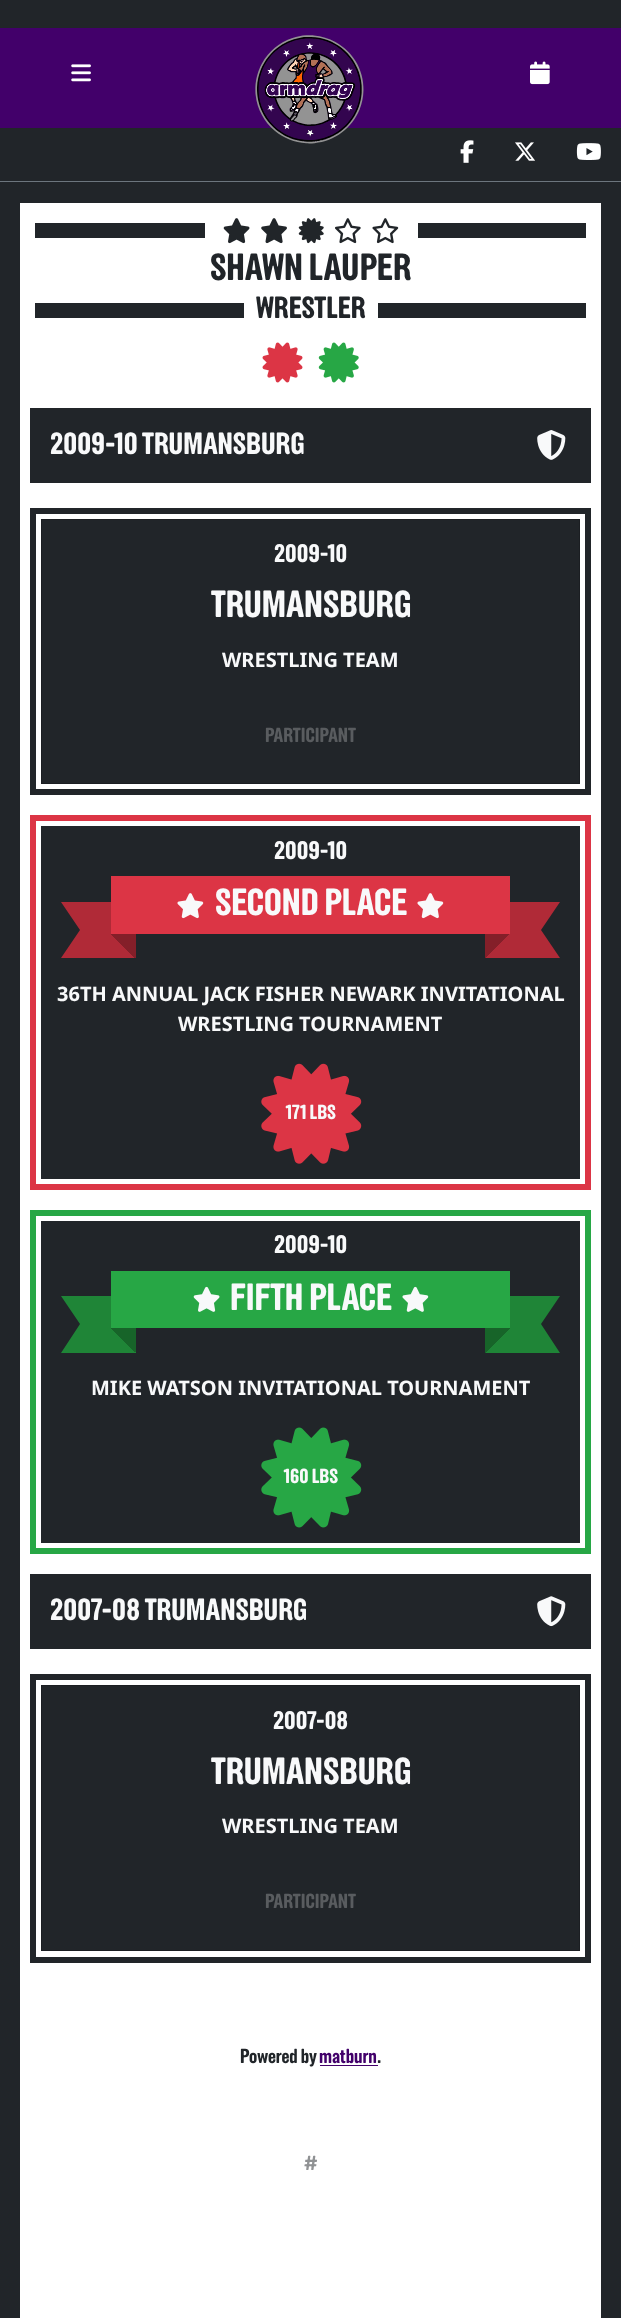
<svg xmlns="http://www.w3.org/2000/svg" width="621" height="2318">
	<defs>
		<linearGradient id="g1" gradientUnits="userSpaceOnUse" x1="111" y1="959" x2="136" y2="934"><stop offset="0.5" stop-color="#841F29" stop-opacity="0" /><stop offset="0.5" stop-color="#841F29" /></linearGradient>
		<linearGradient id="g2" gradientUnits="userSpaceOnUse" x1="510" y1="958" x2="485" y2="933"><stop offset="0.5" stop-color="#841F29" stop-opacity="0" /><stop offset="0.5" stop-color="#841F29" /></linearGradient>
		<linearGradient id="g3" gradientUnits="userSpaceOnUse" x1="111" y1="1353" x2="136" y2="1328"><stop offset="0.5" stop-color="#1F8537" /><stop offset="0.5" stop-color="#176429" /></linearGradient>
		<linearGradient id="g4" gradientUnits="userSpaceOnUse" x1="510" y1="1353" x2="485" y2="1328"><stop offset="0.5" stop-color="#1F8537" /><stop offset="0.5" stop-color="#176429" /></linearGradient>
	</defs>
	<rect width="100%" height="100%" fill="#FFFFFF" />
	<rect x="0" y="0" width="621" height="28" fill="#212529" />
	<rect x="0" y="28" width="621" height="100" fill="#42006A" />
	<image x="71" y="64" width="20" height="18" href="assets/img1.png" />
	<rect x="0" y="128" width="621" height="55" fill="#212529" />
	<image x="255" y="35" width="109" height="109" href="assets/img2.png" />
	<image x="530" y="61" width="20" height="24" href="assets/img3.png" />
	<image x="460" y="140" width="14" height="23" href="assets/img4.png" />
	<image x="515" y="142" width="20" height="19" href="assets/img5.png" />
	<image x="576" y="143" width="25" height="17" href="assets/img6.png" />
	<rect x="0" y="181" width="621" height="1" fill="#6C757D" />
	<rect x="10" y="193" width="601" height="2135" fill="none" stroke="#212529" stroke-width="20" />
	<rect x="35" y="223" width="170" height="15" fill="#212529" />
	<image x="223" y="218" width="27" height="26" href="assets/img7.png" />
	<image x="261" y="218" width="26" height="26" href="assets/img8.png" />
	<image x="298" y="218" width="26" height="26" href="assets/img9.png" />
	<image x="335" y="218" width="26" height="26" href="assets/img10.png" />
	<image x="372" y="218" width="27" height="26" href="assets/img11.png" />
	<rect x="418" y="223" width="168" height="15" fill="#212529" />
	<text x="210" y="280" font-family="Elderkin" font-size="37" font-weight="700" fill="#212529">SHAWN LAUPER</text>
	<rect x="35" y="303" width="209" height="15" fill="#212529" />
	<text x="256" y="318" font-family="Elderkin" font-size="30" font-weight="700" fill="#212529">WRESTLER</text>
	<rect x="378" y="303" width="208" height="15" fill="#212529" />
	<image x="262" y="342" width="41" height="41" href="assets/img12.png" />
	<image x="318" y="342" width="41" height="41" href="assets/img13.png" />
	<rect x="30" y="408" width="561" height="75" fill="#212529" />
	<text x="50" y="454" font-family="Elderkin" font-size="30" font-weight="700" fill="#F8F9FA">2009-10 TRUMANSBURG</text>
	<image x="537" y="430" width="29" height="30" href="assets/img14.png" />
	<rect x="33" y="511" width="555" height="281" fill="none" stroke="#212529" stroke-width="6" />
	<rect x="41.5" y="519.5" width="538" height="264" fill="#212529" stroke="#1B1E22" />
	<text x="274" y="562" font-family="Elderkin" font-size="25" font-weight="700" fill="#F8F9FA">2009-10</text>
	<text x="211" y="617" font-family="Elderkin" font-size="37" font-weight="700" fill="#F8F9FA">TRUMANSBURG</text>
	<text x="222" y="667" font-family="Noto Sans" font-size="20" font-weight="700" fill="#F8F9FA">WRESTLING TEAM</text>
	<text x="265" y="742" font-family="Elderkin" font-size="20" font-weight="700" fill="#595C5F">PARTICIPANT</text>
	<rect x="33" y="818" width="555" height="369" fill="none" stroke="#DC3545" stroke-width="6" />
	<rect x="41" y="826" width="539" height="353" fill="#212529" />
	<text x="274" y="859" font-family="Elderkin" font-size="25" font-weight="700" fill="#F8F9FA">2009-10</text>
	<path d="M61 902H136V958H61L80 930Z" fill="#B02A37" />
	<path d="M560 902H485V958H560L541 930Z" fill="#B02A37" />
	<rect x="111" y="876" width="399" height="58" fill="#DC3545" />
	<rect x="111" y="934" width="25" height="24" fill="url(#g1)" />
	<image x="177" y="893" width="27" height="26" href="assets/img15.png" />
	<text x="215" y="915" font-family="Elderkin" font-size="37" font-weight="700" fill="#F8F9FA">SECOND PLACE</text>
	<image x="417" y="893" width="27" height="26" href="assets/img15.png" />
	<rect x="485" y="934" width="24" height="24" fill="url(#g2)" />
	<g font-family="Noto Sans" font-size="20" font-weight="700" fill="#F8F9FA">
		<text x="57" y="1001">36TH ANNUAL JACK FISHER NEWARK INVITATIONAL</text>
		<text x="178" y="1031">WRESTLING TOURNAMENT</text>
	</g>
	<image x="261" y="1063" width="101" height="101" href="assets/img16.png" />
	<text x="286" y="1119" font-family="Elderkin" font-size="20" font-weight="700" fill="#F8F9FA">171 LBS</text>
	<rect x="33" y="1213" width="555" height="338" fill="none" stroke="#27A745" stroke-width="6" />
	<rect x="41" y="1221" width="539" height="322" fill="#212529" />
	<text x="274" y="1253" font-family="Elderkin" font-size="25" font-weight="700" fill="#F8F9FA">2009-10</text>
	<path d="M136 1353H61L80 1324L61 1296H136Z" fill="#1F8537" />
	<path d="M485 1296V1353H560L541 1324L560 1296Z" fill="#1F8537" />
	<rect x="111" y="1271" width="399" height="57" fill="#27A745" />
	<rect x="111" y="1328" width="25" height="24" fill="url(#g3)" />
	<image x="193" y="1286" width="27" height="26" href="assets/img17.png" />
	<text x="230" y="1310" font-family="Elderkin" font-size="37" font-weight="700" fill="#F8F9FA">FIFTH PLACE</text>
	<image x="402" y="1286" width="27" height="26" href="assets/img18.png" />
	<rect x="485" y="1328" width="25" height="25" fill="url(#g4)" />
	<text x="91" y="1395" font-family="Noto Sans" font-size="20" font-weight="700" fill="#F8F9FA">MIKE WATSON INVITATIONAL TOURNAMENT</text>
	<image x="261" y="1427" width="101" height="101" href="assets/img19.png" />
	<text x="284" y="1483" font-family="Elderkin" font-size="20" font-weight="700" fill="#F8F9FA">160 LBS</text>
	<rect x="30" y="1574" width="561" height="75" fill="#212529" />
	<text x="50" y="1620" font-family="Elderkin" font-size="30" font-weight="700" fill="#F8F9FA">2007-08 TRUMANSBURG</text>
	<image x="537" y="1596" width="29" height="31" href="assets/img20.png" />
	<rect x="33" y="1677" width="555" height="283" fill="none" stroke="#212529" stroke-width="6" />
	<rect x="41.5" y="1685.5" width="538" height="265" fill="#212529" stroke="#1B1E22" />
	<text x="273" y="1729" font-family="Elderkin" font-size="25" font-weight="700" fill="#F8F9FA">2007-08</text>
	<text x="211" y="1784" font-family="Elderkin" font-size="37" font-weight="700" fill="#F8F9FA">TRUMANSBURG</text>
	<text x="222" y="1833" font-family="Noto Sans" font-size="20" font-weight="700" fill="#F8F9FA">WRESTLING TEAM</text>
	<text x="265" y="1908" font-family="Elderkin" font-size="20" font-weight="700" fill="#595C5F">PARTICIPANT</text>
	<text x="240" y="2063" font-family="Elderkin" font-size="20" font-weight="700" fill="#212529">Powered by</text>
	<text x="319" y="2063" font-family="Elderkin" font-size="20" font-weight="700" fill="#42006A">matburn</text>
	<rect x="320" y="2065" width="58" height="1" fill="#42006A" />
	<text x="377" y="2063" font-family="Elderkin" font-size="20" font-weight="700" fill="#212529">.</text>
	<text x="304" y="2170" font-family="Elderkin" font-size="20" font-weight="700" fill="#909294">#</text>
</svg>
